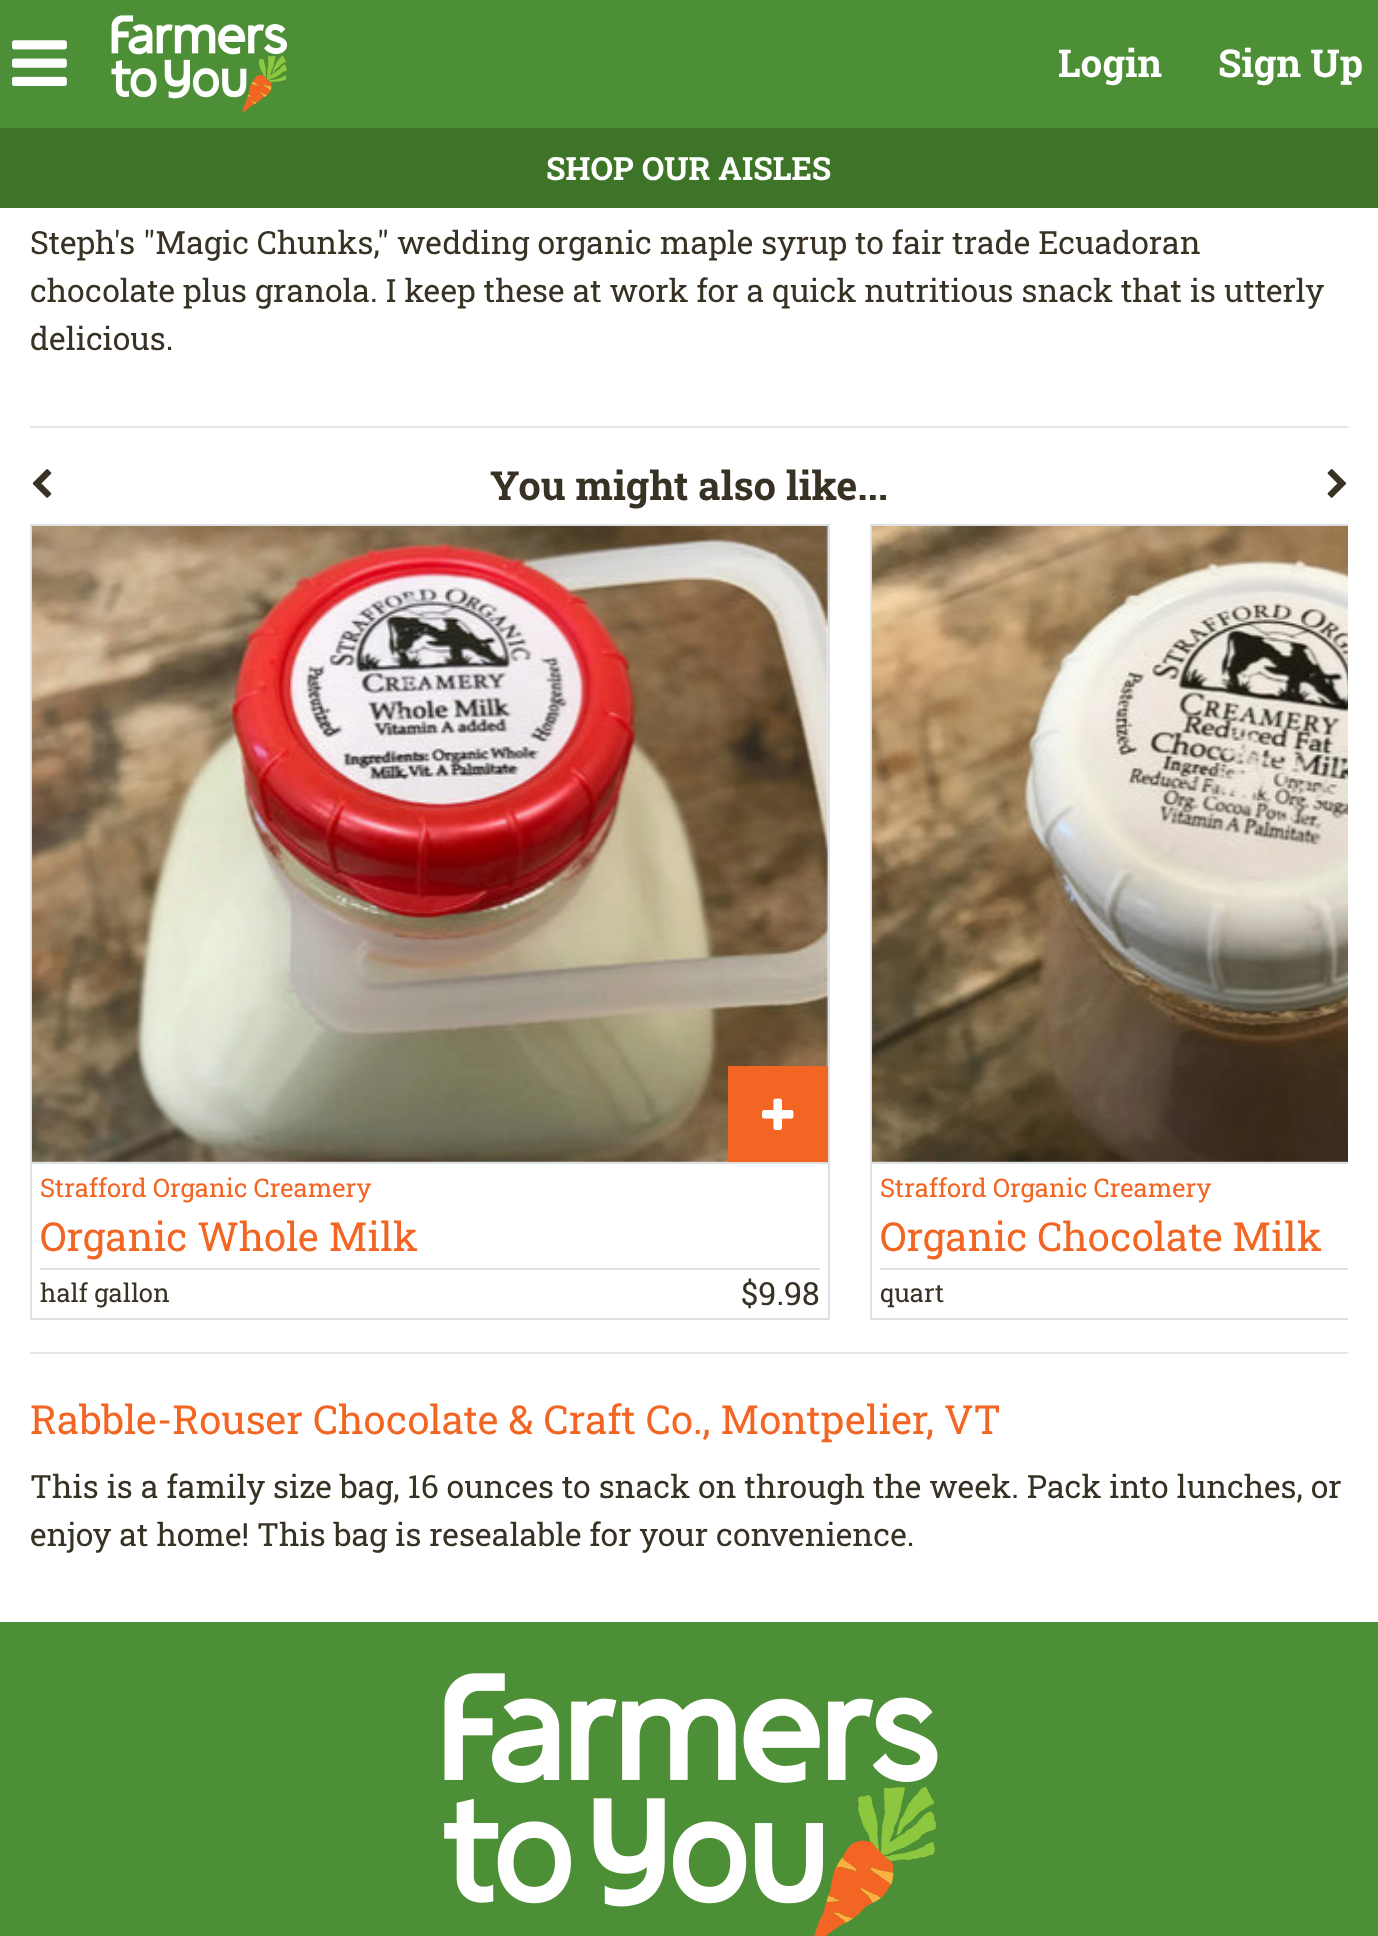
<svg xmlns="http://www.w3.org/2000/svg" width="1378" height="1936">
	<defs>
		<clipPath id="clip1"><rect x="30" y="524" width="1318" height="796" /></clipPath>
	</defs>
	<rect width="100%" height="100%" fill="#FFFFFF" />
	<rect x="0" y="0" width="1378" height="128" fill="#4D8F36" />
	<image x="12" y="40" width="55" height="46" href="assets/img1.png" />
	<image x="111" y="15" width="177" height="97" href="assets/img2.png" />
	<g font-family="Roboto Slab" font-size="38.5" font-weight="700" fill="#FFFFFF">
		<text x="1058" y="77">Login</text>
		<text x="1218" y="77">Sign Up</text>
	</g>
	<rect x="0" y="128" width="1378" height="80" fill="#3E7427" />
	<text x="546" y="180" font-family="Roboto Slab" font-size="32" font-weight="700" fill="#FFFFFF">SHOP OUR AISLES</text>
	<g font-family="Roboto Slab" font-size="32" fill="#373224">
		<text x="30" y="254">Steph's "Magic Chunks," wedding organic maple syrup to fair trade Ecuadoran</text>
		<text x="30" y="302">chocolate plus granola. I keep these at work for a quick nutritious snack that is utterly</text>
		<text x="30" y="350">delicious.</text>
	</g>
	<rect x="30" y="426" width="1318" height="2" fill="#E6E6E6" />
	<image x="32" y="469" width="20" height="29" href="assets/img3.png" />
	<text x="490" y="500" font-family="Roboto Slab" font-size="40" font-weight="700" fill="#373224">You might also like...</text>
	<image x="1327" y="469" width="20" height="29" href="assets/img4.png" />
	<rect x="31" y="525" width="798" height="794" fill="none" stroke="#DEE2E6" stroke-width="2" />
	<image x="32" y="526" width="796" height="636" href="assets/img5.png" />
	<rect x="728" y="1066" width="100" height="96" fill="#F26522" />
	<image x="762" y="1098" width="32" height="32" href="assets/img6.png" />
	<rect x="32" y="1162" width="796" height="2" fill="#DEE2E6" />
	<text x="40" y="1197" font-family="Roboto Slab" font-size="25.6" fill="#F26522">Strafford Organic Creamery</text>
	<text x="40" y="1251" font-family="Roboto Slab" font-size="40" fill="#F26522">Organic Whole Milk</text>
	<rect x="40" y="1268" width="780" height="2" fill="#DEE2E6" />
	<text x="40" y="1302" font-family="Roboto Slab" font-size="25.6" fill="#373224">half gallon</text>
	<text x="741" y="1305" font-family="Roboto Slab" font-size="32" fill="#373224">$9.98</text>
	<g clip-path="url(#clip1)">
		<rect x="871" y="525" width="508" height="794" fill="none" stroke="#DEE2E6" stroke-width="2" />
	</g>
	<image x="872" y="526" width="476" height="636" href="assets/img7.png" />
	<rect x="872" y="1162" width="476" height="2" fill="#DEE2E6" />
	<text x="880" y="1197" font-family="Roboto Slab" font-size="25.6" fill="#F26522">Strafford Organic Creamery</text>
	<text x="880" y="1251" font-family="Roboto Slab" font-size="40" fill="#F26522">Organic Chocolate Milk</text>
	<rect x="880" y="1268" width="468" height="2" fill="#DEE2E6" />
	<text x="880" y="1302" font-family="Roboto Slab" font-size="25.6" fill="#373224">quart</text>
	<rect x="30" y="1352" width="1318" height="2" fill="#E6E6E6" />
	<text x="30" y="1434" font-family="Roboto Slab" font-size="40" fill="#F26522">Rabble-Rouser Chocolate &amp; Craft Co., Montpelier, VT</text>
	<g font-family="Roboto Slab" font-size="32" fill="#373224">
		<text x="30" y="1498">This is a family size bag, 16 ounces to snack on through the week. Pack into lunches, or</text>
		<text x="30" y="1546">enjoy at home! This bag is resealable for your convenience.</text>
	</g>
	<rect x="0" y="1622" width="1378" height="314" fill="#4D8F36" />
	<image x="444" y="1673" width="494" height="263" href="assets/img8.png" />
</svg>
